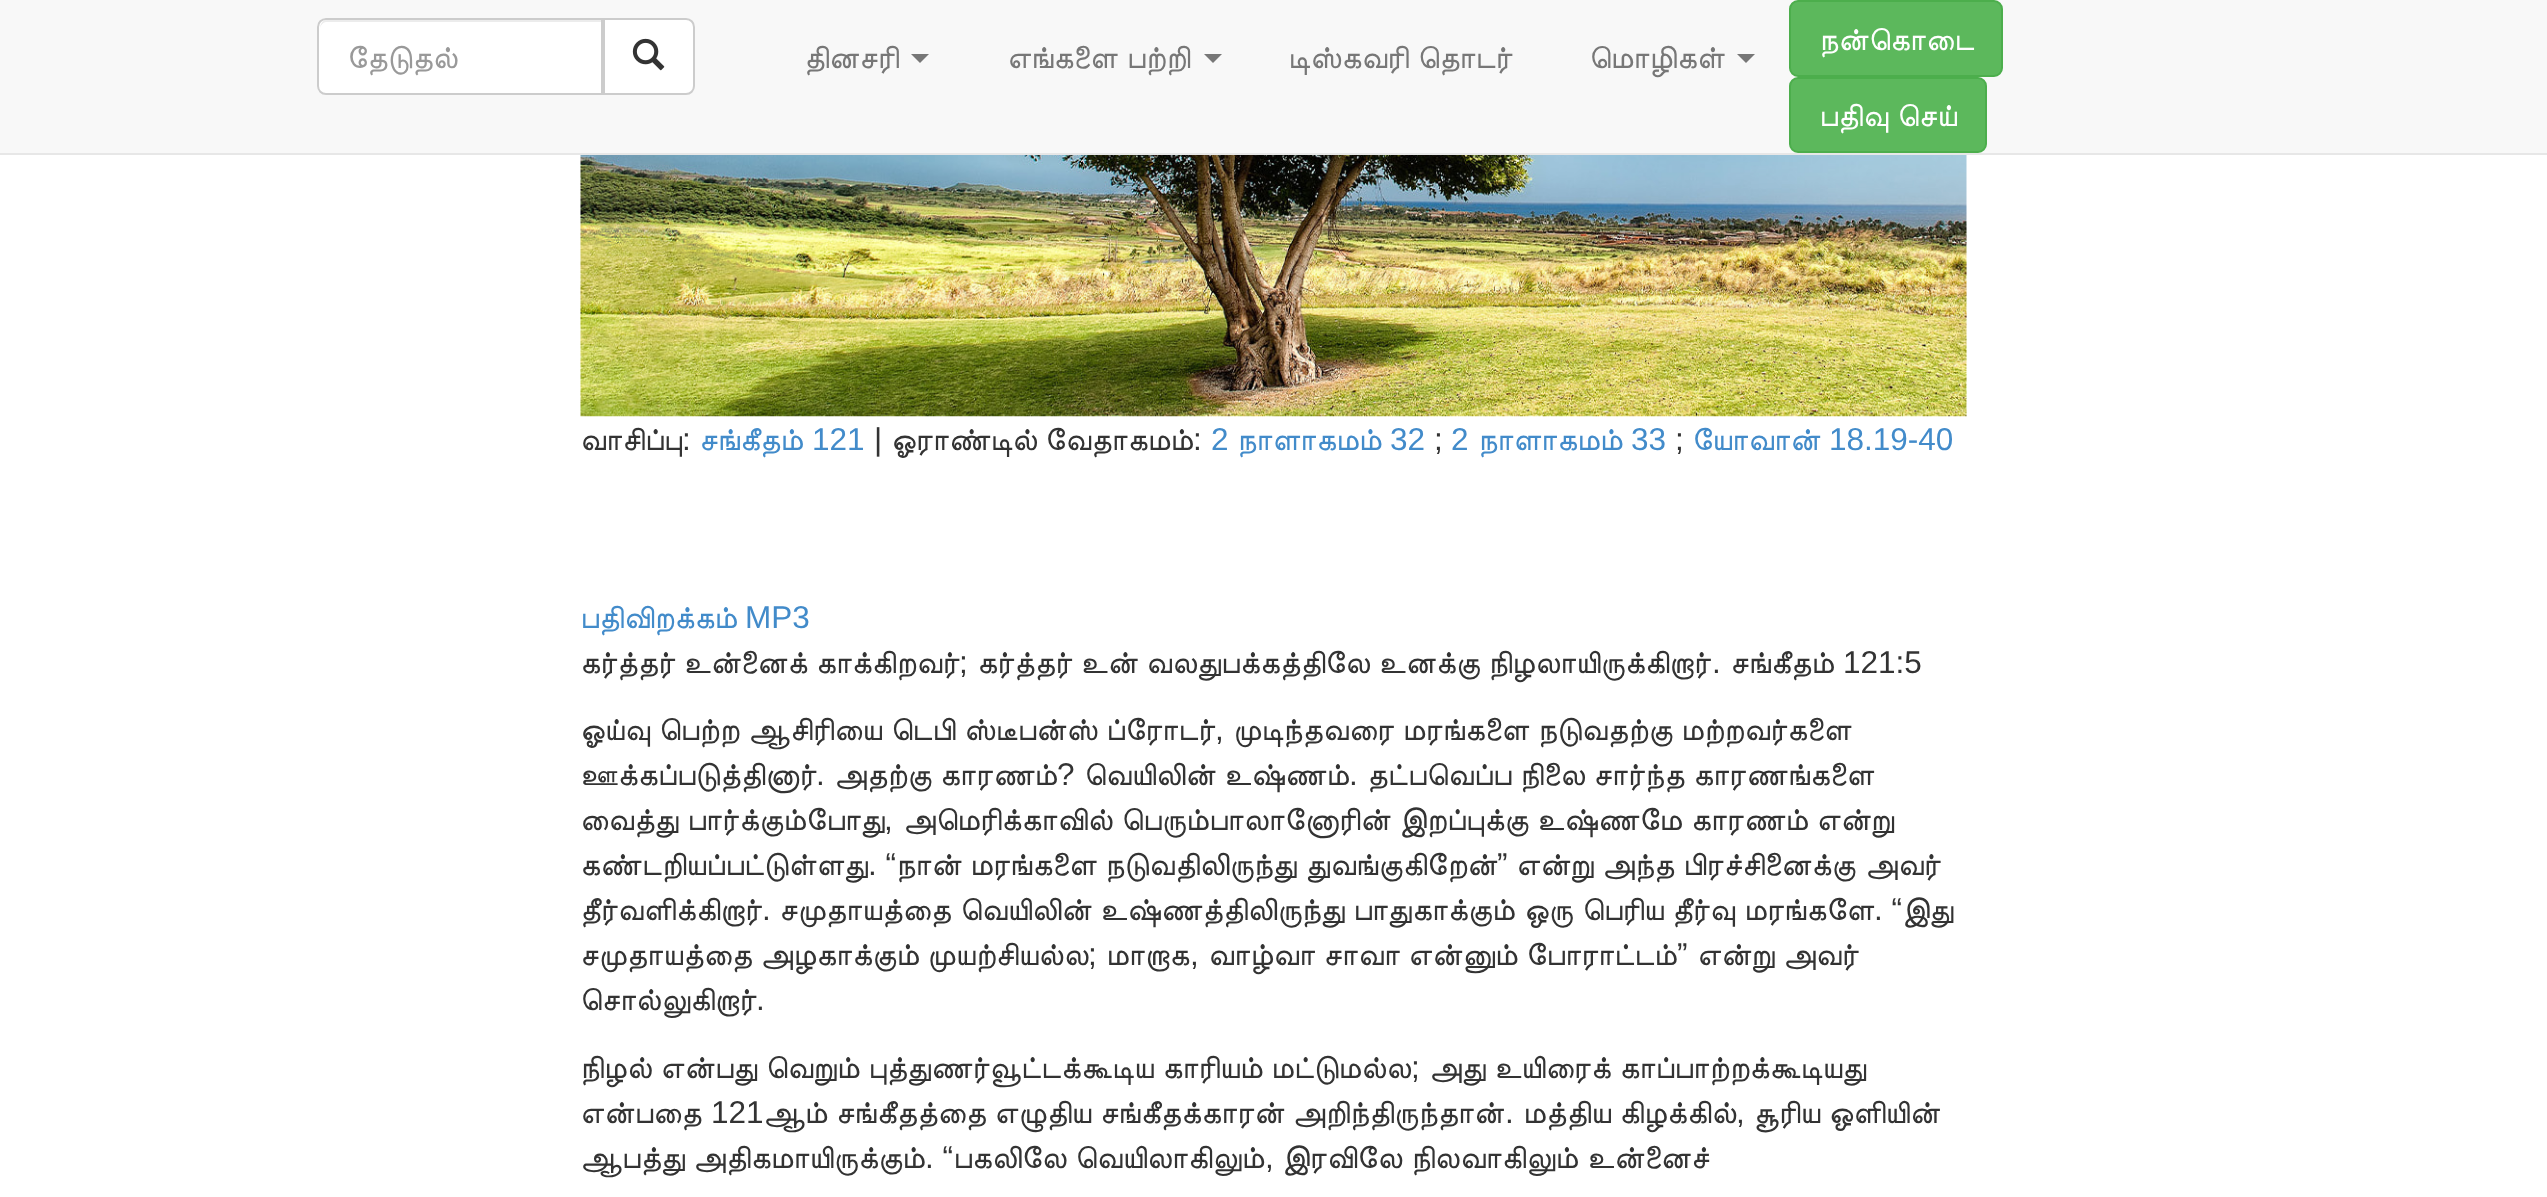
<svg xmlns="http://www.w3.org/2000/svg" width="2547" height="1197">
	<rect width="100%" height="100%" fill="#FFFFFF" />
	<rect x="0" y="0" width="2547" height="153" fill="#F8F8F8" />
	<rect x="0" y="153" width="2547" height="2" fill="#E7E7E7" />
	<path d="M326 18H603V95H326C321 95 317 91 317 86V27C317 22 321 18 326 18Z" fill="#FFFFFF" />
	<path d="M326 22H601V20H327C322 20 320 25 320 29C320 26 323 22 326 22Z" fill="#ECECEC" />
	<path d="M326 19H602V94H326C321.5 94 318 90.5 318 86V27C318 22.5 321.5 19 326 19Z" fill="none" stroke="#CCCCCC" stroke-width="2" />
	<text x="347" y="68" font-family="FreeSans" font-size="31.5" fill="#999999">தேடுதல்</text>
	<path d="M604 19H686C690.5 19 694 22.5 694 27V86C694 90.5 690.5 94 686 94H604Z" fill="#FFFFFF" stroke="#CCCCCC" stroke-width="2" />
	<image x="632" y="38" width="33" height="33" href="assets/img1.png" />
	<text x="804" y="68" font-family="FreeSans" font-size="31.5" fill="#777777">தினசரி</text>
	<path d="M911 54H929L920 63Z" fill="#777777" />
	<text x="1007" y="68" word-spacing="1" font-family="FreeSans" font-size="31.5" fill="#777777">எங்களை பற்றி</text>
	<path d="M1204 54H1222L1213 63Z" fill="#777777" />
	<g font-family="FreeSans" font-size="31.5" fill="#777777">
		<text x="1288" y="68" word-spacing="1">டிஸ்கவரி தொடர்</text>
		<text x="1589" y="68">மொழிகள்</text>
	</g>
	<path d="M1737 54H1755L1746 63Z" fill="#777777" />
	<rect x="1790" y="1" width="212" height="75" rx="8" fill="#5CB85C" stroke="#4CAE4C" stroke-width="2" />
	<text x="1819" y="50" font-family="FreeSans" font-size="31.5" fill="#FFFFFF">நன்கொடை</text>
	<rect x="1790" y="78" width="196" height="74" rx="8" fill="#5CB85C" stroke="#4CAE4C" stroke-width="2" />
	<text x="1819" y="126" word-spacing="1" font-family="FreeSans" font-size="31.5" fill="#FFFFFF">பதிவு செய்</text>
	<image x="580" y="155" width="1387" height="262" href="assets/img2.png" />
	<text x="580" y="450" font-family="FreeSans" font-size="31.5" fill="#333333">வாசிப்பு</text>
	<text x="682" y="450" font-family="Liberation Sans" font-size="31.5" fill="#333333">:</text>
	<text x="699" y="450" font-family="FreeSans" font-size="31.5" fill="#428BCA">சங்கீதம்</text>
	<text x="812" y="450" font-family="Liberation Sans" font-size="31.5" fill="#428BCA">121</text>
	<text x="874" y="450" font-family="Liberation Sans" font-size="31.5" fill="#333333">|</text>
	<text x="891" y="450" font-family="FreeSans" font-size="31.5" fill="#333333">ஓராண்டில் வேதாகமம்</text>
	<text x="1193" y="450" font-family="Liberation Sans" font-size="31.5" fill="#333333">:</text>
	<text x="1211" y="450" font-family="Liberation Sans" font-size="31.5" fill="#428BCA">2</text>
	<text x="1237" y="450" font-family="FreeSans" font-size="31.5" fill="#428BCA">நாளாகமம்</text>
	<text x="1390" y="450" font-family="Liberation Sans" font-size="31.5" fill="#428BCA">32</text>
	<text x="1434" y="450" font-family="Liberation Sans" font-size="31.5" fill="#333333">;</text>
	<text x="1451" y="450" font-family="Liberation Sans" font-size="31.5" fill="#428BCA">2</text>
	<text x="1478" y="450" font-family="FreeSans" font-size="31.5" fill="#428BCA">நாளாகமம்</text>
	<text x="1631" y="450" font-family="Liberation Sans" font-size="31.5" fill="#428BCA">33</text>
	<text x="1675" y="450" font-family="Liberation Sans" font-size="31.5" fill="#333333">;</text>
	<text x="1692" y="450" font-family="FreeSans" font-size="31.5" fill="#428BCA">யோவான்</text>
	<text x="1829" y="450" font-family="Liberation Sans" font-size="31.5" fill="#428BCA">18.19-40</text>
	<text x="580" y="628" font-family="FreeSans" font-size="31.5" fill="#428BCA">பதிவிறக்கம்</text>
	<text x="745" y="628" font-family="Liberation Sans" font-size="31.5" fill="#428BCA">MP3</text>
	<text x="580" y="673" word-spacing="0.5" font-family="FreeSans" font-size="31.5" fill="#333333">கர்த்தர் உன்னைக் காக்கிறவர்</text>
	<text x="959" y="673" font-family="Liberation Sans" font-size="31.5" fill="#333333">;</text>
	<text x="977" y="673" word-spacing="0.5" font-family="FreeSans" font-size="31.5" fill="#333333">கர்த்தர் உன் வலதுபக்கத்திலே உனக்கு நிழலாயிருக்கிறார்</text>
	<text x="1712" y="673" font-family="Liberation Sans" font-size="31.5" fill="#333333">.</text>
	<text x="1730" y="673" font-family="FreeSans" font-size="31.5" fill="#333333">சங்கீதம்</text>
	<text x="1843" y="673" font-family="Liberation Sans" font-size="31.5" fill="#333333">121:5</text>
	<text x="580" y="740" word-spacing="0.75" font-family="FreeSans" font-size="31.5" fill="#333333">ஓய்வு பெற்ற ஆசிரியை டெபி ஸ்டீபன்ஸ் ப்ரோடர்</text>
	<text x="1215" y="740" font-family="Liberation Sans" font-size="31.5" fill="#333333">,</text>
	<g font-family="FreeSans" font-size="31.5" fill="#333333">
		<text x="1233" y="740" word-spacing="0.75">முடிந்தவரை மரங்களை நடுவதற்கு மற்றவர்களை</text>
		<text x="580" y="785">ஊக்கப்படுத்தினார்</text>
	</g>
	<text x="816" y="785" font-family="Liberation Sans" font-size="31.5" fill="#333333">.</text>
	<text x="834" y="785" word-spacing="0.5" font-family="FreeSans" font-size="31.5" fill="#333333">அதற்கு காரணம்</text>
	<text x="1057" y="785" font-family="Liberation Sans" font-size="31.5" fill="#333333">?</text>
	<text x="1084" y="785" word-spacing="0.5" font-family="FreeSans" font-size="31.5" fill="#333333">வெயிலின் உஷ்ணம்</text>
	<text x="1349" y="785" font-family="Liberation Sans" font-size="31.5" fill="#333333">.</text>
	<g font-family="FreeSans" font-size="31.5" fill="#333333">
		<text x="1367" y="785" word-spacing="0.5">தட்பவெப்ப நிலை சார்ந்த காரணங்களை</text>
		<text x="580" y="830" word-spacing="0.75">வைத்து பார்க்கும்போது</text>
	</g>
	<text x="884" y="830" font-family="Liberation Sans" font-size="31.5" fill="#333333">,</text>
	<g font-family="FreeSans" font-size="31.5" fill="#333333">
		<text x="903" y="830" word-spacing="0.75">அமெரிக்காவில் பெரும்பாலானோரின் இறப்புக்கு உஷ்ணமே காரணம் என்று</text>
		<text x="580" y="875">கண்டறியப்பட்டுள்ளது</text>
	</g>
	<text x="868" y="875" font-family="Liberation Sans" font-size="31.5" fill="#333333">. “</text>
	<g font-family="FreeSans" font-size="31.5" fill="#333333">
		<text x="896" y="875">நான்</text>
		<text x="970" y="875">மரங்களை</text>
		<text x="1105" y="875">நடுவதிலிருந்து</text>
		<text x="1306" y="875">துவங்குகிறேன்</text>
	</g>
	<text x="1497" y="875" font-family="Liberation Sans" font-size="31.5" fill="#333333">”</text>
	<g font-family="FreeSans" font-size="31.5" fill="#333333">
		<text x="1516" y="875">என்று</text>
		<text x="1602" y="875">அந்த</text>
		<text x="1683" y="875">பிரச்சினைக்கு</text>
		<text x="1865" y="875">அவர்</text>
		<text x="580" y="920">தீர்வளிக்கிறார்</text>
	</g>
	<text x="762" y="920" font-family="Liberation Sans" font-size="31.5" fill="#333333">.</text>
	<g font-family="FreeSans" font-size="31.5" fill="#333333">
		<text x="779" y="920">சமுதாயத்தை</text>
		<text x="960" y="920">வெயிலின்</text>
		<text x="1100" y="920">உஷ்ணத்திலிருந்து</text>
		<text x="1353" y="920">பாதுகாக்கும்</text>
		<text x="1524" y="920">ஒரு</text>
		<text x="1582" y="920">பெரிய</text>
		<text x="1672" y="920">தீர்வு</text>
		<text x="1744" y="920">மரங்களே</text>
	</g>
	<text x="1874" y="920" font-family="Liberation Sans" font-size="31.5" fill="#333333">. “</text>
	<g font-family="FreeSans" font-size="31.5" fill="#333333">
		<text x="1902" y="920">இது</text>
		<text x="580" y="965" word-spacing="0.5">சமுதாயத்தை அழகாக்கும் முயற்சியல்ல</text>
	</g>
	<text x="1088" y="965" font-family="Liberation Sans" font-size="31.5" fill="#333333">;</text>
	<text x="1106" y="965" font-family="FreeSans" font-size="31.5" fill="#333333">மாறாக</text>
	<text x="1190" y="965" font-family="Liberation Sans" font-size="31.5" fill="#333333">,</text>
	<text x="1208" y="965" word-spacing="0.5" font-family="FreeSans" font-size="31.5" fill="#333333">வாழ்வா சாவா என்னும் போராட்டம்</text>
	<text x="1677" y="965" font-family="Liberation Sans" font-size="31.5" fill="#333333">”</text>
	<g font-family="FreeSans" font-size="31.5" fill="#333333">
		<text x="1697" y="965" word-spacing="0.5">என்று அவர்</text>
		<text x="580" y="1010">சொல்லுகிறார்</text>
	</g>
	<text x="756" y="1010" font-family="Liberation Sans" font-size="31.5" fill="#333333">.</text>
	<text x="580" y="1078" word-spacing="0.75" font-family="FreeSans" font-size="31.5" fill="#333333">நிழல் என்பது வெறும் புத்துணர்வூட்டக்கூடிய காரியம் மட்டுமல்ல</text>
	<text x="1411" y="1078" font-family="Liberation Sans" font-size="31.5" fill="#333333">;</text>
	<g font-family="FreeSans" font-size="31.5" fill="#333333">
		<text x="1429" y="1078" word-spacing="0.75">அது உயிரைக் காப்பாற்றக்கூடியது</text>
		<text x="580" y="1123">என்பதை</text>
	</g>
	<text x="711" y="1123" font-family="Liberation Sans" font-size="31.5" fill="#333333">121</text>
	<text x="763" y="1123" word-spacing="0.5" font-family="FreeSans" font-size="31.5" fill="#333333">ஆம் சங்கீதத்தை எழுதிய சங்கீதக்காரன் அறிந்திருந்தான்</text>
	<text x="1505" y="1123" font-family="Liberation Sans" font-size="31.5" fill="#333333">.</text>
	<text x="1523" y="1123" word-spacing="0.5" font-family="FreeSans" font-size="31.5" fill="#333333">மத்திய கிழக்கில்</text>
	<text x="1736" y="1123" font-family="Liberation Sans" font-size="31.5" fill="#333333">,</text>
	<g font-family="FreeSans" font-size="31.5" fill="#333333">
		<text x="1754" y="1123" word-spacing="0.5">சூரிய ஒளியின்</text>
		<text x="580" y="1168">ஆபத்து</text>
		<text x="693" y="1168">அதிகமாயிருக்கும்</text>
	</g>
	<text x="925" y="1168" font-family="Liberation Sans" font-size="31.5" fill="#333333">. “</text>
	<g font-family="FreeSans" font-size="31.5" fill="#333333">
		<text x="953" y="1168">பகலிலே</text>
		<text x="1075" y="1168">வெயிலாகிலும்</text>
	</g>
	<text x="1265" y="1168" font-family="Liberation Sans" font-size="31.5" fill="#333333">,</text>
	<g font-family="FreeSans" font-size="31.5" fill="#333333">
		<text x="1282" y="1168">இரவிலே</text>
		<text x="1411" y="1168">நிலவாகிலும்</text>
		<text x="1587" y="1168">உன்னைச்</text>
	</g>
</svg>
